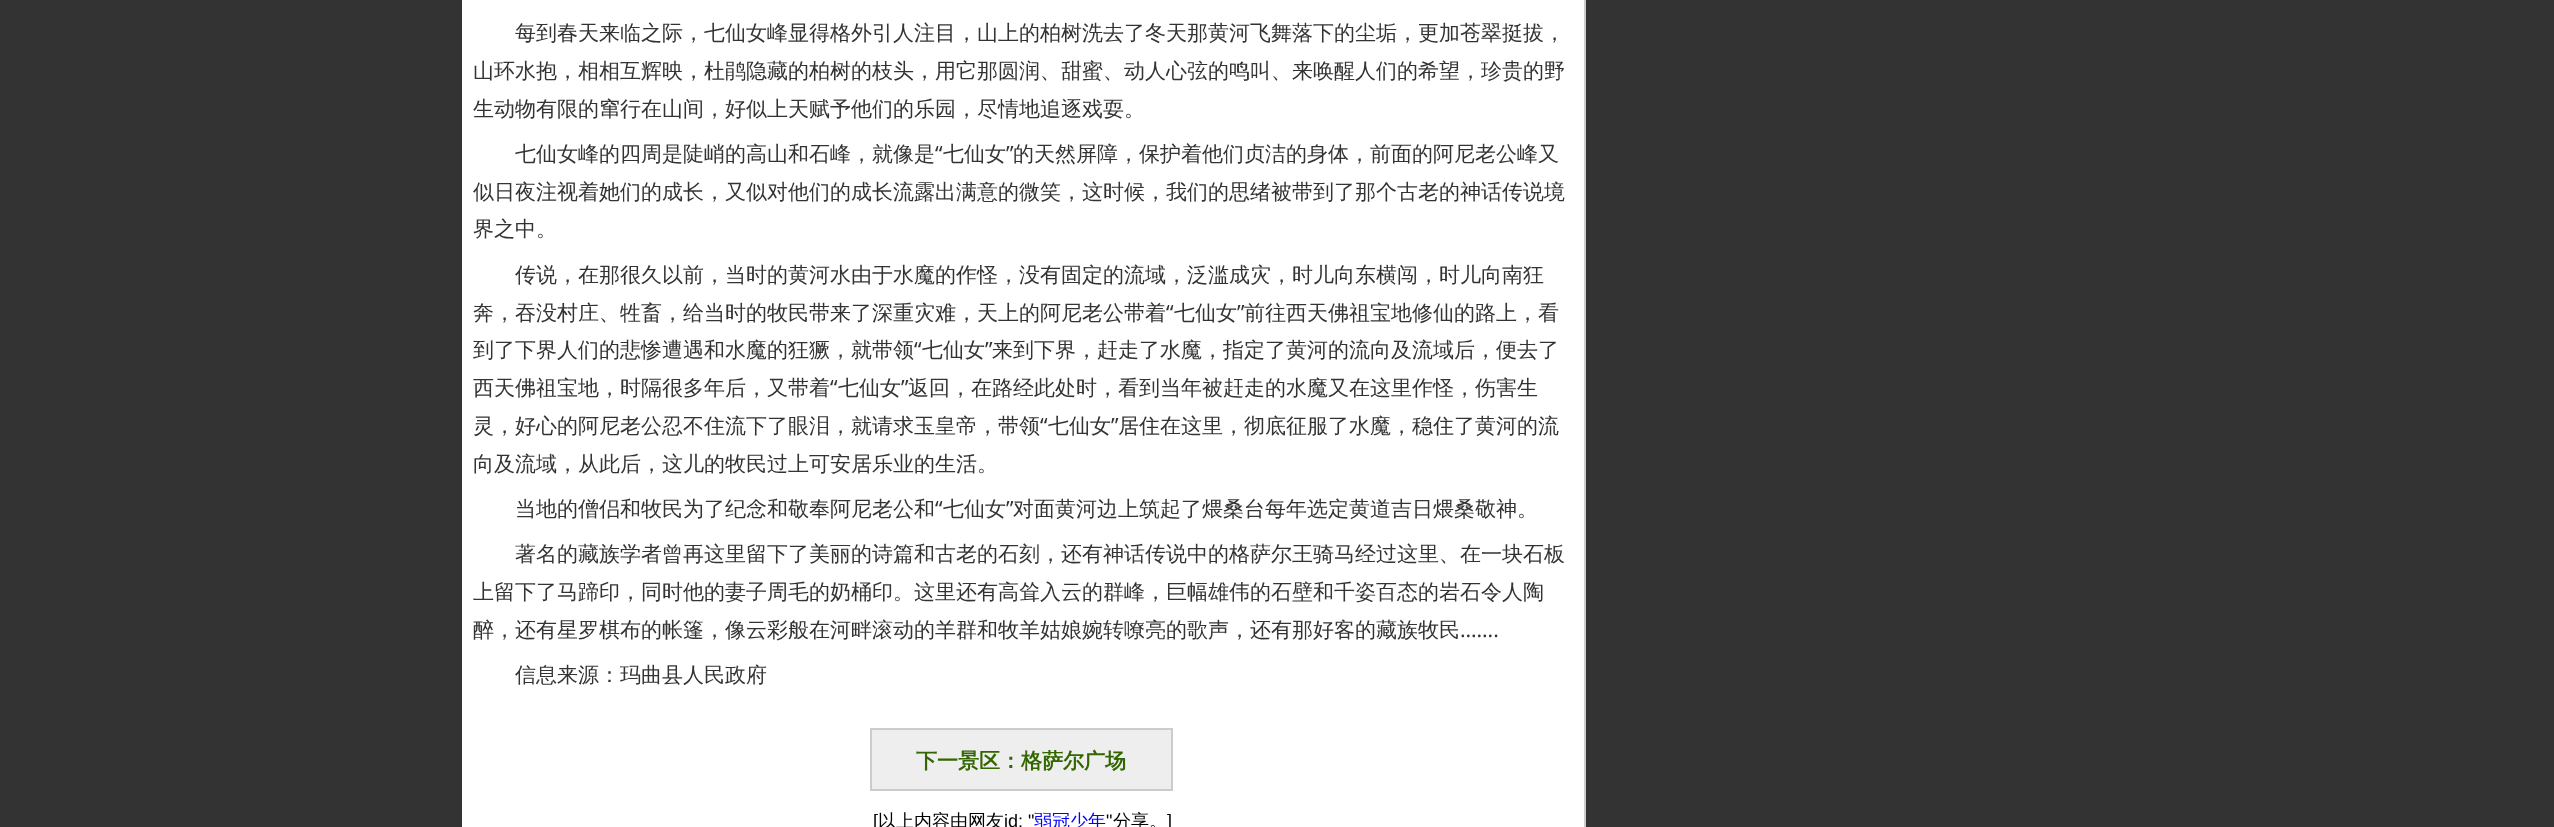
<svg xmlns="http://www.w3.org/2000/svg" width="2554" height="827">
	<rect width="100%" height="100%" fill="#333333" />
	<rect x="462" y="0" width="1122" height="827" fill="#FFFFFF" />
	<rect x="1584" y="0" width="2" height="827" fill="#CCCCCC" />
	<g font-family="WenQuanYi Zen Hei" font-size="21" font-weight="500" fill="#333333">
		<text x="515" y="40">每到春天来临之际，七仙女峰显得格外引人注目，山上的柏树洗去了冬天那黄河飞舞落下的尘垢，更加苍翠挺拔，</text>
		<text x="473" y="78">山环水抱，相相互辉映，杜鹃隐藏的柏树的枝头，用它那圆润、甜蜜、动人心弦的鸣叫、来唤醒人们的希望，珍贵的野</text>
		<text x="473" y="116">生动物有限的窜行在山间，好似上天赋予他们的乐园，尽情地追逐戏耍。</text>
		<text x="515" y="161">七仙女峰的四周是陡峭的高山和石峰，就像是</text>
	</g>
	<text x="935" y="161" font-family="Noto Sans" font-size="21" fill="#333333">“</text>
	<text x="943" y="161" font-family="WenQuanYi Zen Hei" font-size="21" font-weight="500" fill="#333333">七仙女</text>
	<text x="1006" y="161" font-family="Noto Sans" font-size="21" fill="#333333">”</text>
	<g font-family="WenQuanYi Zen Hei" font-size="21" font-weight="500" fill="#333333">
		<text x="1013" y="161">的天然屏障，保护着他们贞洁的身体，前面的阿尼老公峰又</text>
		<text x="473" y="199">似日夜注视着她们的成长，又似对他们的成长流露出满意的微笑，这时候，我们的思绪被带到了那个古老的神话传说境</text>
		<text x="473" y="236">界之中。</text>
		<text x="515" y="282">传说，在那很久以前，当时的黄河水由于水魔的作怪，没有固定的流域，泛滥成灾，时儿向东横闯，时儿向南狂</text>
		<text x="473" y="320">奔，吞没村庄、牲畜，给当时的牧民带来了深重灾难，天上的阿尼老公带着</text>
	</g>
	<text x="1166" y="320" font-family="Noto Sans" font-size="21" fill="#333333">“</text>
	<text x="1174" y="320" font-family="WenQuanYi Zen Hei" font-size="21" font-weight="500" fill="#333333">七仙女</text>
	<text x="1237" y="320" font-family="Noto Sans" font-size="21" fill="#333333">”</text>
	<g font-family="WenQuanYi Zen Hei" font-size="21" font-weight="500" fill="#333333">
		<text x="1244" y="320">前往西天佛祖宝地修仙的路上，看</text>
		<text x="473" y="357">到了下界人们的悲惨遭遇和水魔的狂獗，就带领</text>
	</g>
	<text x="914" y="357" font-family="Noto Sans" font-size="21" fill="#333333">“</text>
	<text x="922" y="357" font-family="WenQuanYi Zen Hei" font-size="21" font-weight="500" fill="#333333">七仙女</text>
	<text x="985" y="357" font-family="Noto Sans" font-size="21" fill="#333333">”</text>
	<g font-family="WenQuanYi Zen Hei" font-size="21" font-weight="500" fill="#333333">
		<text x="992" y="357">来到下界，赶走了水魔，指定了黄河的流向及流域后，便去了</text>
		<text x="473" y="395">西天佛祖宝地，时隔很多年后，又带着</text>
	</g>
	<text x="830" y="395" font-family="Noto Sans" font-size="21" fill="#333333">“</text>
	<text x="838" y="395" font-family="WenQuanYi Zen Hei" font-size="21" font-weight="500" fill="#333333">七仙女</text>
	<text x="901" y="395" font-family="Noto Sans" font-size="21" fill="#333333">”</text>
	<g font-family="WenQuanYi Zen Hei" font-size="21" font-weight="500" fill="#333333">
		<text x="908" y="395">返回，在路经此处时，看到当年被赶走的水魔又在这里作怪，伤害生</text>
		<text x="473" y="433">灵，好心的阿尼老公忍不住流下了眼泪，就请求玉皇帝，带领</text>
	</g>
	<text x="1040" y="433" font-family="Noto Sans" font-size="21" fill="#333333">“</text>
	<text x="1048" y="433" font-family="WenQuanYi Zen Hei" font-size="21" font-weight="500" fill="#333333">七仙女</text>
	<text x="1111" y="433" font-family="Noto Sans" font-size="21" fill="#333333">”</text>
	<g font-family="WenQuanYi Zen Hei" font-size="21" font-weight="500" fill="#333333">
		<text x="1118" y="433">居住在这里，彻底征服了水魔，稳住了黄河的流</text>
		<text x="473" y="471">向及流域，从此后，这儿的牧民过上可安居乐业的生活。</text>
		<text x="515" y="516">当地的僧侣和牧民为了纪念和敬奉阿尼老公和</text>
	</g>
	<text x="935" y="516" font-family="Noto Sans" font-size="21" fill="#333333">“</text>
	<text x="943" y="516" font-family="WenQuanYi Zen Hei" font-size="21" font-weight="500" fill="#333333">七仙女</text>
	<text x="1006" y="516" font-family="Noto Sans" font-size="21" fill="#333333">”</text>
	<g font-family="WenQuanYi Zen Hei" font-size="21" font-weight="500" fill="#333333">
		<text x="1013" y="516">对面黄河边上筑起了煨桑台每年选定黄道吉日煨桑敬神。</text>
		<text x="515" y="561">著名的藏族学者曾再这里留下了美丽的诗篇和古老的石刻，还有神话传说中的格萨尔王骑马经过这里、在一块石板</text>
		<text x="473" y="599">上留下了马蹄印，同时他的妻子周毛的奶桶印。这里还有高耸入云的群峰，巨幅雄伟的石壁和千姿百态的岩石令人陶</text>
		<text x="473" y="637">醉，还有星罗棋布的帐篷，像云彩般在河畔滚动的羊群和牧羊姑娘婉转嘹亮的歌声，还有那好客的藏族牧民</text>
	</g>
	<text x="1460" y="637" font-family="Noto Sans" font-size="21" fill="#333333">…….</text>
	<text x="515" y="682" font-family="WenQuanYi Zen Hei" font-size="21" font-weight="500" fill="#333333">信息来源：玛曲县人民政府</text>
	<rect x="871" y="729" width="301" height="61" fill="#EEEEEE" stroke="#CCCCCC" stroke-width="2" />
	<text x="916" y="768" font-family="WenQuanYi Zen Hei" font-size="21" font-weight="700" fill="#336600">下一景区：格萨尔广场</text>
	<text x="873" y="827" font-family="Liberation Sans" font-size="18" fill="#000000">[</text>
	<text x="878" y="827" font-family="WenQuanYi Zen Hei" font-size="18" font-weight="500" fill="#000000">以上内容由网友</text>
	<text x="1004" y="827" font-family="Liberation Sans" font-size="18" fill="#000000">id: "</text>
	<text x="1034" y="827" font-family="WenQuanYi Zen Hei" font-size="18" font-weight="500" fill="#0000FF">弱冠少年</text>
	<text x="1106" y="827" font-family="Liberation Sans" font-size="18" fill="#000000">"</text>
	<text x="1113" y="827" font-family="WenQuanYi Zen Hei" font-size="18" font-weight="500" fill="#000000">分享。</text>
	<text x="1167" y="827" font-family="Liberation Sans" font-size="18" fill="#000000">]</text>
</svg>
